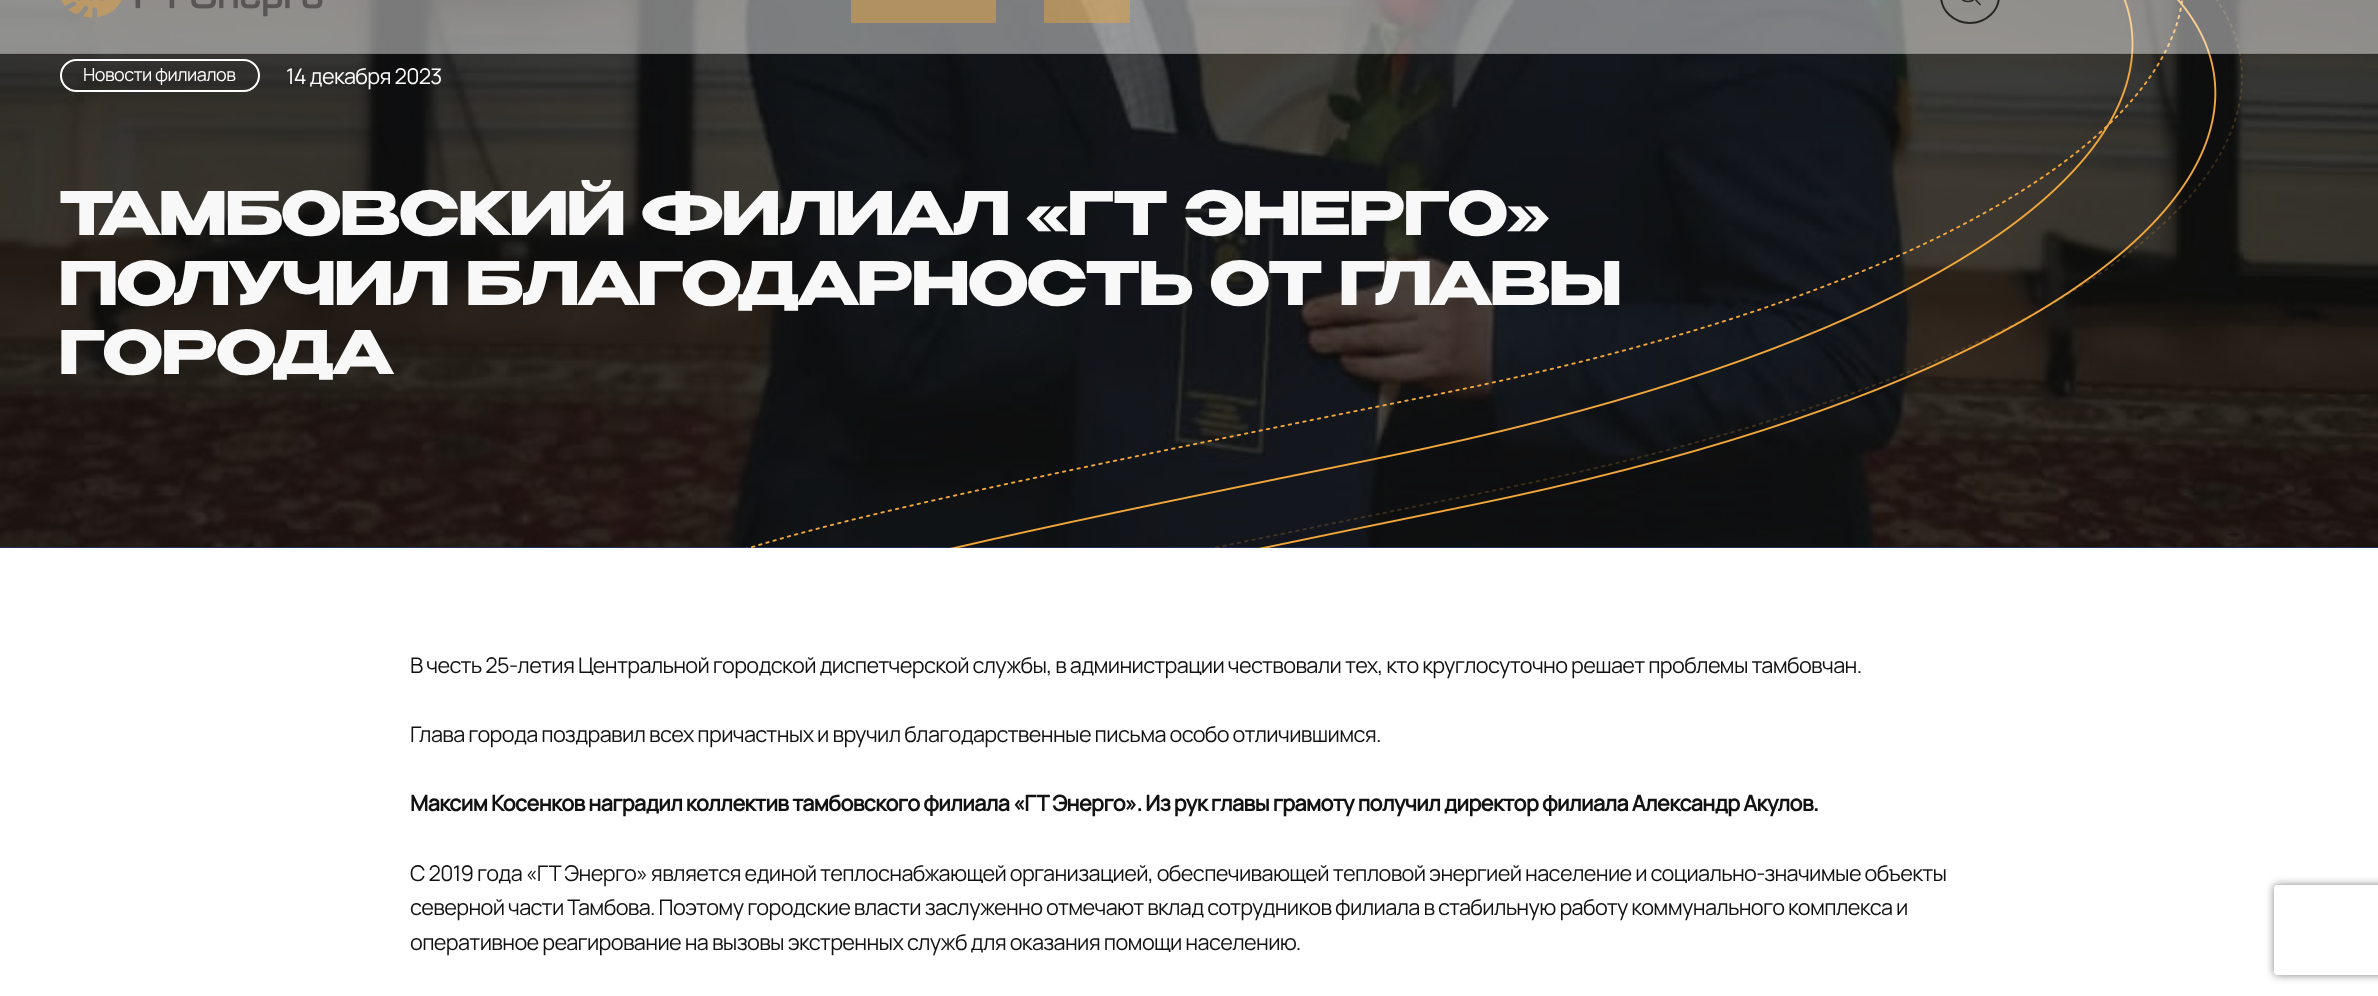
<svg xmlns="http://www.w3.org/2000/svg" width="2378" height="996">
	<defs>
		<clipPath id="clip1"><path d="M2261 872H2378V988H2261ZM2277 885H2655C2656.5 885 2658 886.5 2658 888V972C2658 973.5 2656.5 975 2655 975H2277C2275.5 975 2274 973.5 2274 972V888C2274 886.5 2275.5 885 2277 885Z" clip-rule="evenodd" /></clipPath>
	</defs>
	<rect width="100%" height="100%" fill="#FFFFFF" />
	<image x="0" y="0" width="2378" height="547" href="assets/img2.png" />
	<rect x="0" y="547" width="2378" height="1" fill="#212F54" />
	<image x="746" y="0" width="1497" height="548" href="assets/img3.png" />
	<rect x="0" y="0" width="2378" height="54" fill="#FFFFFF" fill-opacity="0.45" />
	<rect x="0" y="53" width="2378" height="2" fill="#121212" fill-opacity="0.09" />
	<image x="61" y="0" width="262" height="18" href="assets/img1.png" />
	<rect x="851" y="0" width="145" height="23" fill="#B19061" />
	<rect x="1044" y="0" width="86" height="23" fill="#F1A73B" fill-opacity="0.45" />
	<rect x="1941" y="-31" width="58" height="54" rx="29" fill="none" stroke="#282622" stroke-width="2" />
	<path d="M1980.5 5L1974.5-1.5M1968 1.5C1955.5 1.5 1955.5-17.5 1968-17.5C1980.5-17.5 1980.5 1.5 1968 1.5Z" fill="none" stroke="#282622" stroke-width="1.5" />
	<rect x="61" y="60" width="198" height="31" rx="15.5" fill="none" stroke="#FFFFFF" stroke-width="2" />
	<text x="83" y="81" font-family="Manrope" font-size="18" letter-spacing="-0.5" fill="#FFFFFF">Новости филиалов</text>
	<text x="286" y="84" font-family="Manrope" font-size="21.65" letter-spacing="-0.65" fill="#FFFFFF">14 декабря 2023</text>
	<g font-family="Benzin" font-size="59.5" font-weight="700" letter-spacing="-1.2" fill="#F8F8F8">
		<text x="59" y="235">ТАМБОВСКИЙ ФИЛИАЛ «ГТ ЭНЕРГО»</text>
		<text x="59" y="305">ПОЛУЧИЛ БЛАГОДАРНОСТЬ ОТ ГЛАВЫ</text>
		<text x="59" y="374">ГОРОДА</text>
	</g>
	<g font-family="Manrope" font-size="21.65" letter-spacing="-0.65" fill="#121212">
		<text x="410" y="673">В честь 25-летия Центральной городской диспетчерской службы, в администрации чествовали тех, кто круглосуточно решает проблемы тамбовчан.</text>
		<text x="410" y="742">Глава города поздравил всех причастных и вручил благодарственные письма особо отличившимся.</text>
	</g>
	<text x="410" y="811" font-family="Manrope" font-size="21.65" font-weight="700" letter-spacing="-0.65" fill="#121212">Максим Косенков наградил коллектив тамбовского филиала «ГТ Энерго». Из рук главы грамоту получил директор филиала Александр Акулов.</text>
	<g font-family="Manrope" font-size="21.65" letter-spacing="-0.65" fill="#121212">
		<text x="410" y="881">С 2019 года «ГТ Энерго» является единой теплоснабжающей организацией, обеспечивающей тепловой энергией население и социально-значимые объекты</text>
		<text x="410" y="915">северной части Тамбова. Поэтому городские власти заслуженно отмечают вклад сотрудников филиала в стабильную работу коммунального комплекса и</text>
		<text x="410" y="950">оперативное реагирование на вызовы экстренных служб для оказания помощи населению.</text>
	</g>
	<g clip-path="url(#clip1)">
		<rect x="2274" y="885" width="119" height="90" rx="3" fill="#808080" filter="blur(4px)" />
	</g>
</svg>
